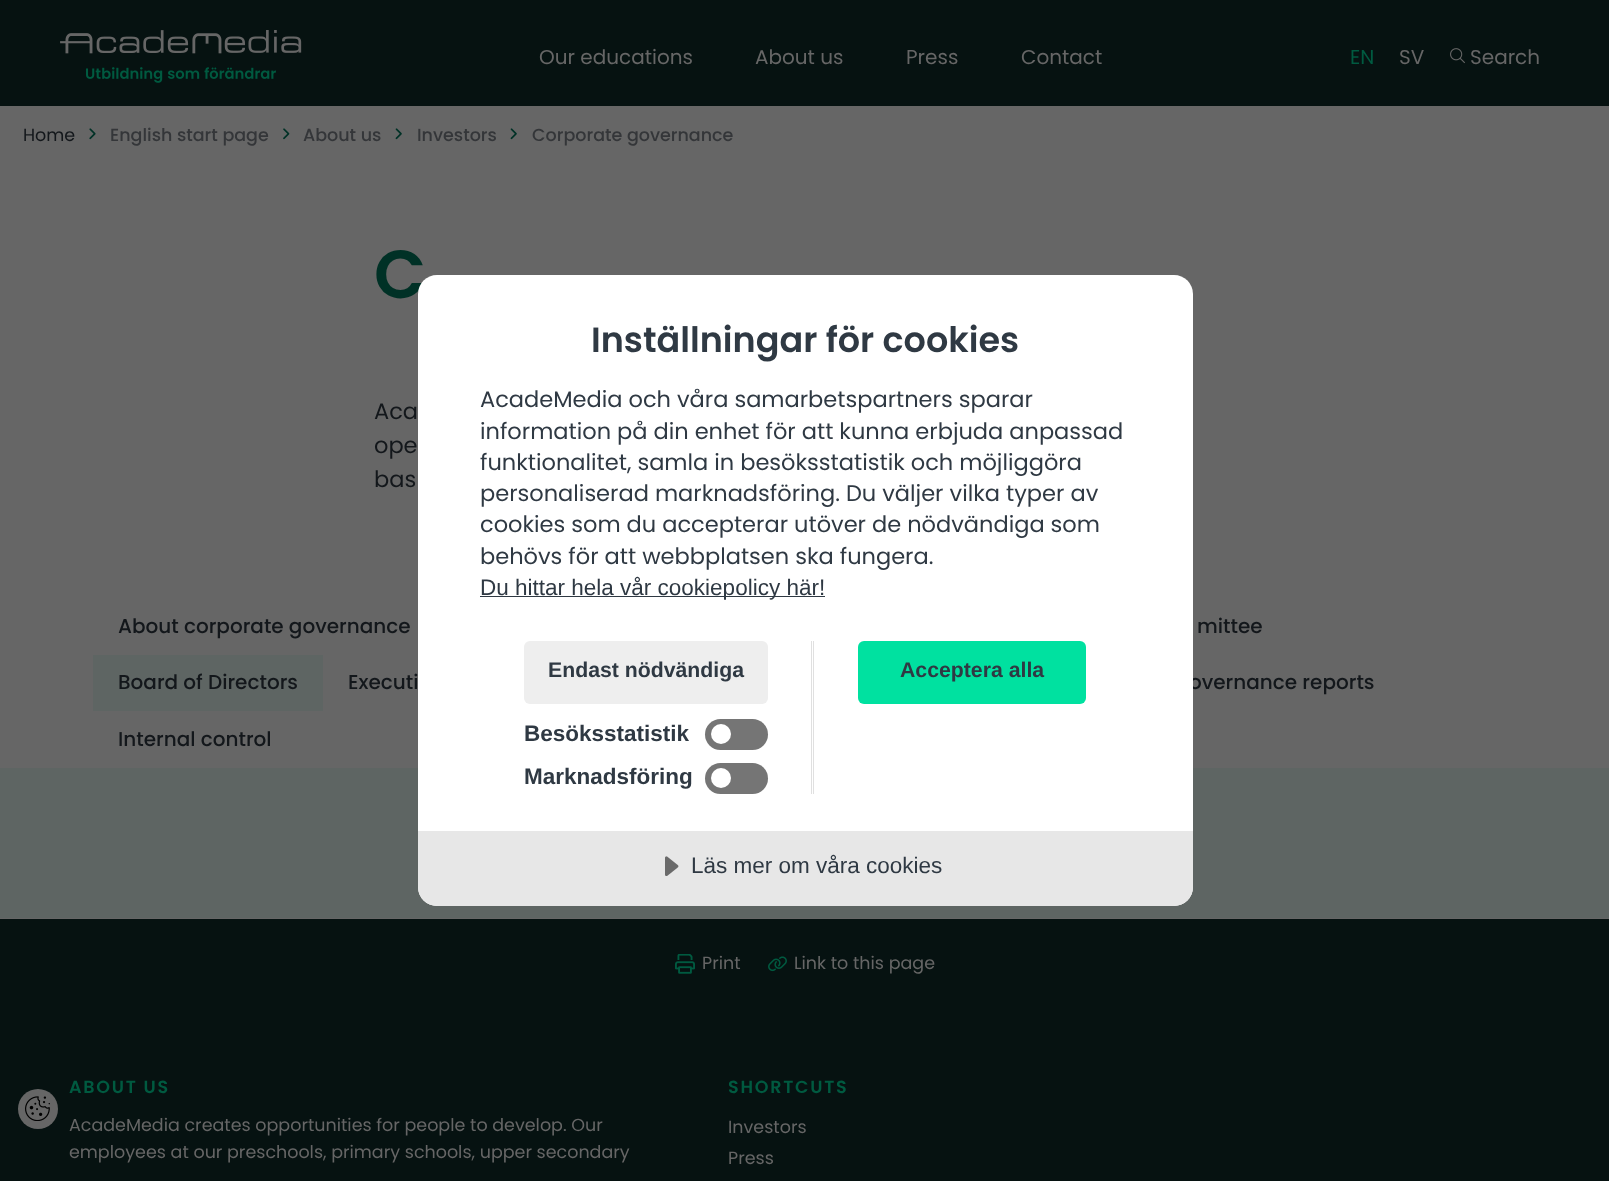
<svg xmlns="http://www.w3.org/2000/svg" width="1609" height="1181">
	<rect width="100%" height="100%" fill="#666666" />
	<rect x="0" y="0" width="1609" height="106" fill="#061211" />
	<image x="60" y="30" width="242" height="53" href="assets/img1.png" />
	<g font-family="Poppins" font-size="20" fill="#666666">
		<text x="539" y="64">Our educations</text>
		<text x="755" y="64">About us</text>
		<text x="906" y="64">Press</text>
		<text x="1021" y="64">Contact</text>
	</g>
	<text x="1350" y="64" font-family="Poppins" font-size="20" fill="#005A40">EN</text>
	<text x="1399" y="64" font-family="Poppins" font-size="20" fill="#666666">SV</text>
	<image x="1450" y="48" width="15" height="16" href="assets/img2.png" />
	<text x="1470" y="64" font-family="Poppins" font-size="20" fill="#666666">Search</text>
	<text x="23" y="141" font-family="Poppins" font-size="17.5" fill="#13171B">Home</text>
	<image x="89" y="128" width="7" height="12" href="assets/img3.png" />
	<text x="110" y="141" font-family="Poppins" font-size="17.5" font-weight="500" fill="#343639">English start page</text>
	<image x="283" y="128" width="7" height="12" href="assets/img4.png" />
	<text x="303" y="141" font-family="Poppins" font-size="17.5" font-weight="500" fill="#343639">About us</text>
	<image x="395" y="128" width="7" height="12" href="assets/img5.png" />
	<text x="417" y="141" font-family="Poppins" font-size="17.5" font-weight="500" fill="#343639">Investors</text>
	<image x="510" y="128" width="7" height="12" href="assets/img5.png" />
	<text x="532" y="141" font-family="Poppins" font-size="17.5" font-weight="500" fill="#343639">Corporate governance</text>
	<text x="374" y="298" font-family="Poppins" font-size="68" font-weight="600" fill="#003126">C</text>
	<g font-family="Poppins" font-size="22.5" fill="#13171B">
		<text x="374" y="419">Aca</text>
		<text x="374" y="453">ope</text>
		<text x="374" y="487">bas</text>
	</g>
	<g font-family="Poppins" font-size="20" font-weight="500" fill="#13171B">
		<text x="118" y="633">About corporate governance</text>
		<text x="1197" y="633">mittee</text>
	</g>
	<rect x="93" y="655" width="230" height="56" fill="#5E6563" />
	<g font-family="Poppins" font-size="20" font-weight="500" fill="#13171B">
		<text x="118" y="689">Board of Directors</text>
		<text x="348" y="689">Executi</text>
		<text x="1189" y="689">overnance reports</text>
		<text x="118" y="746">Internal control</text>
	</g>
	<rect x="0" y="768" width="1609" height="150" fill="#5E6563" />
	<rect x="0" y="919" width="1609" height="262" fill="#061211" />
	<image x="675" y="954" width="20" height="20" href="assets/img6.png" />
	<text x="702" y="969" font-family="Poppins" font-size="17.5" fill="#666666">Print</text>
	<image x="768" y="956" width="19" height="16" href="assets/img7.png" />
	<text x="794" y="969" font-family="Poppins" font-size="17.5" fill="#666666">Link to this page</text>
	<text x="69" y="1093" font-family="Poppins" font-size="17.5" font-weight="600" letter-spacing="1.75" fill="#005A40">ABOUT US</text>
	<g font-family="Poppins" font-size="17.5" fill="#666666">
		<text x="69" y="1131">AcadeMedia creates opportunities for people to develop. Our</text>
		<text x="69" y="1158">employees at our preschools, primary schools, upper secondary</text>
	</g>
	<text x="728" y="1093" font-family="Poppins" font-size="17.5" font-weight="600" letter-spacing="1.75" fill="#005A40">SHORTCUTS</text>
	<g font-family="Poppins" font-size="17.5" fill="#666666">
		<text x="728" y="1133">Investors</text>
		<text x="728" y="1164">Press</text>
	</g>
	<circle cx="38" cy="1109" r="20" fill="#666666" />
	<image x="25" y="1096" width="25" height="25" href="assets/img8.png" />
	<rect x="418" y="275" width="775" height="631" rx="19" fill="#FFFFFF" />
	<text x="591" y="352" font-family="Poppins" font-size="35" font-weight="600" fill="#2F3943">Inställningar för cookies</text>
	<g font-family="Poppins" font-size="22.5" fill="#2F3943">
		<text x="480" y="407">AcadeMedia och våra samarbetspartners sparar</text>
		<text x="480" y="439">information på din enhet för att kunna erbjuda anpassad</text>
		<text x="480" y="470">funktionalitet, samla in besöksstatistik och möjliggöra</text>
		<text x="480" y="501">personaliserad marknadsföring. Du väljer vilka typer av</text>
		<text x="480" y="532">cookies som du accepterar utöver de nödvändiga som</text>
		<text x="480" y="564">behövs för att webbplatsen ska fungera.</text>
	</g>
	<rect x="480" y="596" width="345" height="1" fill="#2F3943" />
	<text x="480" y="595" font-family="Liberation Sans" font-size="22.5" fill="#2F3943">Du hittar hela vår cookiepolicy här!</text>
	<rect x="811" y="641" width="1" height="153" fill="#E0E0E0" />
	<rect x="524" y="641" width="244" height="63" rx="6" fill="#EEEEEE" />
	<text x="548" y="677" font-family="Liberation Sans" font-size="21.25" font-weight="700" fill="#2F3943">Endast nödvändiga</text>
	<text x="524" y="741" font-family="Liberation Sans" font-size="22.5" font-weight="700" fill="#2F3943">Besöksstatistik</text>
	<rect x="705" y="719" width="63" height="31" rx="15.5" fill="#757575" />
	<circle cx="721" cy="734" r="10" fill="#FFFFFF" />
	<text x="524" y="784" font-family="Liberation Sans" font-size="22.5" font-weight="700" fill="#2F3943">Marknadsföring</text>
	<rect x="705" y="763" width="63" height="31" rx="15.5" fill="#757575" />
	<circle cx="721" cy="778" r="10" fill="#FFFFFF" />
	<rect x="813" y="641" width="1" height="153" fill="#E0E0E0" />
	<rect x="858" y="641" width="228" height="63" rx="6" fill="#00E1A0" />
	<text x="900" y="677" font-family="Liberation Sans" font-size="21.25" font-weight="700" fill="#2F3943">Acceptera alla</text>
	<path d="M418 831H1193V887C1193 897.5 1184.5 906 1174 906H437C426.5 906 418 897.5 418 887Z" fill="#E7E7E7" />
	<image x="665" y="856" width="14" height="20" href="assets/img9.png" />
	<text x="691" y="873" font-family="Liberation Sans" font-size="22.5" fill="#2F3943">Läs mer om våra cookies</text>
</svg>
